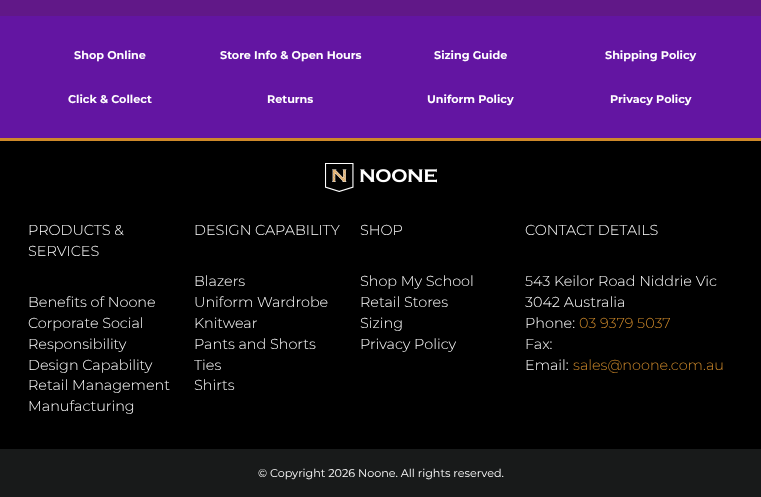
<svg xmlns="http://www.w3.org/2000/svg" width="761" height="497">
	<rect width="100%" height="100%" fill="#611888" />
	<rect x="0" y="16" width="761" height="122" fill="#6315A2" />
	<rect x="0" y="138" width="761" height="3" fill="#CE892A" />
	<g font-family="Montserrat" font-size="11.2" font-weight="700" fill="#FFFFFF">
		<text x="74" y="59">Shop Online</text>
		<text x="220" y="59">Store Info &amp; Open Hours</text>
		<text x="434" y="59">Sizing Guide</text>
		<text x="605" y="59">Shipping Policy</text>
		<text x="68" y="103">Click &amp; Collect</text>
		<text x="267" y="103">Returns</text>
		<text x="427" y="103">Uniform Policy</text>
		<text x="610" y="103">Privacy Policy</text>
	</g>
	<rect x="0" y="141" width="761" height="308" fill="#000000" />
	<image x="325" y="163" width="112" height="29" href="assets/img1.png" />
	<g font-family="Montserrat" font-size="14.4" font-weight="300" fill="#FFFFFF">
		<text x="28" y="235">PRODUCTS &amp;</text>
		<text x="28" y="256">SERVICES</text>
		<text x="28" y="307">Benefits of Noone</text>
		<text x="28" y="328">Corporate Social</text>
		<text x="28" y="349">Responsibility</text>
		<text x="28" y="370">Design Capability</text>
		<text x="28" y="390">Retail Management</text>
		<text x="28" y="411">Manufacturing</text>
		<text x="194" y="235">DESIGN CAPABILITY</text>
		<text x="194" y="286">Blazers</text>
		<text x="194" y="307">Uniform Wardrobe</text>
		<text x="194" y="328">Knitwear</text>
		<text x="194" y="349">Pants and Shorts</text>
		<text x="194" y="370">Ties</text>
		<text x="194" y="390">Shirts</text>
		<text x="360" y="235">SHOP</text>
		<text x="360" y="286">Shop My School</text>
		<text x="360" y="307">Retail Stores</text>
		<text x="360" y="328">Sizing</text>
		<text x="360" y="349">Privacy Policy</text>
		<text x="525" y="235">CONTACT DETAILS</text>
		<text x="525" y="286">543 Keilor Road Niddrie Vic</text>
		<text x="525" y="307">3042 Australia</text>
		<text x="525" y="328">Phone:</text>
	</g>
	<text x="579" y="328" font-family="Montserrat" font-size="14.4" font-weight="300" fill="#CE892A">03 9379 5037</text>
	<g font-family="Montserrat" font-size="14.4" font-weight="300" fill="#FFFFFF">
		<text x="525" y="349">Fax:</text>
		<text x="525" y="370">Email:</text>
	</g>
	<text x="573" y="370" font-family="Montserrat" font-size="14.4" font-weight="300" fill="#CE892A">sales@noone.com.au</text>
	<rect x="0" y="449" width="761" height="48" fill="#181A1A" />
	<text x="258" y="477" font-family="Montserrat" font-size="11.2" fill="#FFFFFF">© Copyright 2026 Noone. All rights reserved.</text>
</svg>
